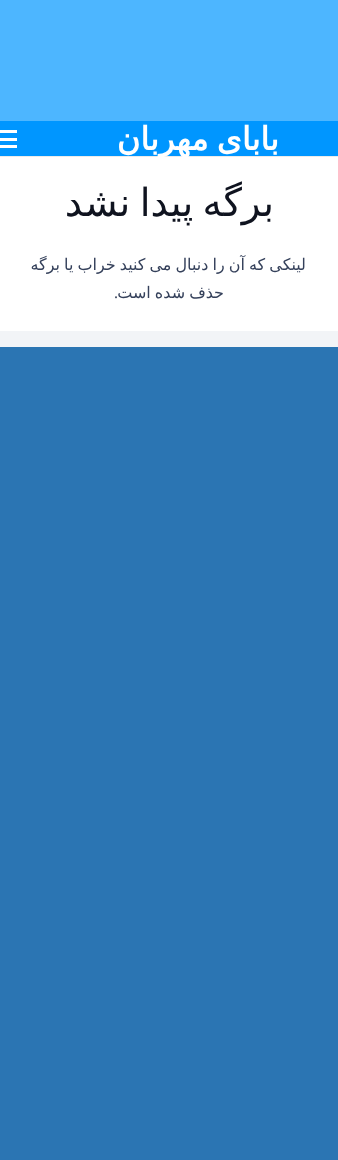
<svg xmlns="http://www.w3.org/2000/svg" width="338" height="1160">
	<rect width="100%" height="100%" fill="#F2F4F7" />
	<rect x="0" y="157" width="338" height="174" fill="#FFFFFF" />
	<rect x="0" y="0" width="338" height="121" fill="#4DB6FF" />
	<rect x="0" y="156" width="338" height="1" fill="#EBEBEB" />
	<rect x="0" y="121" width="338" height="35" fill="#0096FF" />
	<text x="279" y="150" word-spacing="-2" font-family="DejaVu Sans" font-size="32" font-weight="700" direction="rtl" fill="#FFFFFF">بابای مهربان</text>
	<rect x="0" y="138" width="17" height="3" fill="#FFFFFF" />
	<rect x="0" y="130" width="17" height="3" fill="#FFFFFF" />
	<rect x="0" y="145" width="17" height="3" fill="#FFFFFF" />
	<text x="274" y="216" word-spacing="-3" font-family="DejaVu Sans" font-size="38.75" direction="rtl" fill="#0F131F">برگه پیدا نشد</text>
	<g font-family="DejaVu Sans" font-size="16" direction="rtl" fill="#35415B">
		<text x="306" y="270" word-spacing="-1">لینکی که آن را دنبال می کنید خراب یا برگه</text>
		<text x="224" y="298" word-spacing="-1">حذف شده است</text>
	</g>
	<text x="118" y="298" font-family="Liberation Serif" font-size="16" direction="rtl" fill="#35415B">.</text>
	<rect x="0" y="347" width="338" height="813" fill="#2B75B3" />
</svg>
